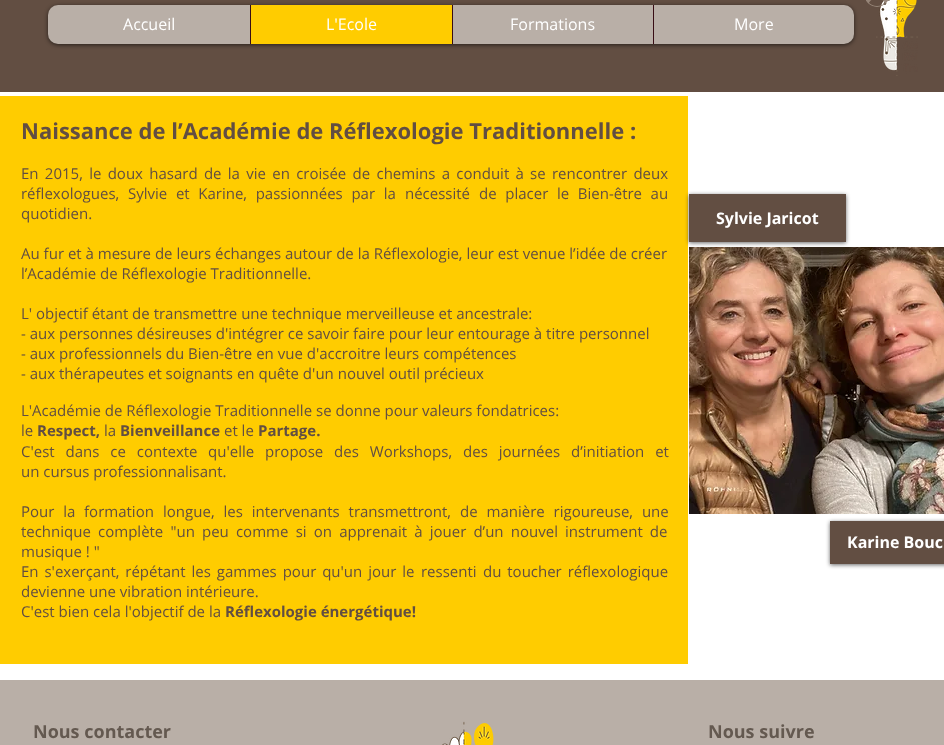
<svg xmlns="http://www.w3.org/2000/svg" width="944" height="745">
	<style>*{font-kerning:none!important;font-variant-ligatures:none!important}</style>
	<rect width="100%" height="100%" fill="#FFFFFF" />
	<rect x="0" y="0" width="944" height="92" fill="#624E42" />
	<image x="876" y="0" width="42" height="76" href="assets/img2.png" />
	<image x="866" y="0" width="22" height="7" href="assets/img1.png" />
	<rect x="48" y="6" width="806" height="39" rx="10" fill="#000000" fill-opacity="0.6" filter="blur(2px)" />
	<rect x="48" y="5" width="806" height="39" rx="10" fill="#B9AFA7" />
	<text x="123" y="30" font-family="Open Sans" font-size="16" fill="#FFFFFF">Accueil</text>
	<rect x="251" y="5" width="201" height="39" fill="#FFCC00" />
	<rect x="250" y="5" width="1" height="39" fill="#380D15" />
	<text x="326" y="30" font-family="Open Sans" font-size="16" fill="#FFFFFF">L'Ecole</text>
	<rect x="452" y="5" width="1" height="39" fill="#380D15" />
	<text x="510" y="30" font-family="Open Sans" font-size="16" fill="#FFFFFF">Formations</text>
	<rect x="653" y="5" width="1" height="39" fill="#380D15" />
	<text x="734" y="30" font-family="Open Sans" font-size="16" fill="#FFFFFF">More</text>
	<rect x="0" y="96" width="688" height="568" fill="#FFCC00" />
	<text x="21" y="139" font-family="Open Sans" font-size="22" font-weight="700" fill="#624E42">Naissance de l’Académie de Réflexologie Traditionnelle :</text>
	<g font-family="Open Sans" font-size="15" fill="#624E42">
		<text x="21" y="179" word-spacing="2.4">En 2015, le doux hasard de la vie en croisée de chemins a conduit à se rencontrer deux</text>
		<text x="21" y="199" word-spacing="4.75">réflexologues, Sylvie et Karine, passionnées par la</text>
		<text x="405" y="199">nécessité</text>
		<text x="479" y="199" word-spacing="4.75">de placer le Bien-être au</text>
		<text x="21" y="219">quotidien.</text>
		<text x="21" y="259">Au fur et à mesure de leurs échanges autour de la Réflexologie, leur est venue l’idée de créer</text>
		<text x="21" y="279">l’Académie de Réflexologie Traditionnelle.</text>
		<text x="21" y="319">L' objectif étant de transmettre une technique merveilleuse et ancestrale:</text>
		<text x="21" y="339">- aux personnes désireuses d'intégrer ce savoir faire pour leur entourage à titre personnel</text>
		<text x="21" y="359">- aux professionnels du Bien-être en vue d'accroitre leurs compétences</text>
		<text x="21" y="379">- aux thérapeutes et soignants en quête d'un nouvel outil précieux</text>
		<text x="21" y="416">L'Académie de Réflexologie Traditionnelle</text>
		<text x="316" y="416">se donne pour valeurs fondatrices:</text>
		<text x="21" y="436">le</text>
	</g>
	<text x="37" y="436" font-family="Open Sans" font-size="15" font-weight="700" fill="#624E42">Respect,</text>
	<text x="104" y="436" font-family="Open Sans" font-size="15" fill="#624E42">la</text>
	<text x="120" y="436" font-family="Open Sans" font-size="15" font-weight="700" fill="#624E42">Bienveillance</text>
	<text x="224" y="436" font-family="Open Sans" font-size="15" fill="#624E42">et le</text>
	<text x="258" y="436" font-family="Open Sans" font-size="15" font-weight="700" fill="#624E42">Partage.</text>
	<g font-family="Open Sans" font-size="15" fill="#624E42">
		<text x="21" y="457" word-spacing="7">C'est dans ce contexte</text>
		<text x="208" y="457">qu'elle</text>
		<text x="265" y="457" word-spacing="7">propose des Workshops, des journées d’initiation et</text>
		<text x="21" y="477">un cursus professionnalisant.</text>
		<text x="21" y="517" word-spacing="5">Pour la</text>
		<text x="84" y="517">formation</text>
		<text x="163" y="517" word-spacing="5">longue, les intervenants transmettront, de manière rigoureuse, une</text>
		<text x="21" y="537" word-spacing="3.25">technique complète "un peu comme si on apprenait à jouer d’un nouvel instrument de</text>
		<text x="21" y="557">musique ! "</text>
		<text x="21" y="577" word-spacing="2">En s'exerçant, répétant les gammes pour qu'un jour le</text>
		<text x="421" y="577">ressenti</text>
		<text x="483" y="577" word-spacing="2">du toucher réflexologique</text>
		<text x="21" y="597">devienne une vibration intérieure.</text>
		<text x="21" y="617">C'est bien cela l'objectif de la</text>
	</g>
	<text x="225" y="617" font-family="Open Sans" font-size="15" font-weight="700" fill="#624E42">Réflexologie énergétique!</text>
	<rect x="689" y="195" width="157" height="48" fill="#000000" fill-opacity="0.6" filter="blur(2px)" />
	<rect x="689" y="194" width="157" height="48" fill="#624E42" />
	<text x="716" y="224" font-family="Open Sans" font-size="16" font-weight="700" fill="#FFFFFF">Sylvie Jaricot</text>
	<image x="689" y="247" width="255" height="267" href="assets/img3.png" />
	<rect x="830" y="522" width="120" height="43" fill="#000000" fill-opacity="0.6" filter="blur(2px)" />
	<rect x="830" y="521" width="114" height="43" fill="#624E42" />
	<text x="847" y="548" font-family="Open Sans" font-size="16" font-weight="700" fill="#FFFFFF">Karine Bouc</text>
	<rect x="0" y="680" width="944" height="65" fill="#B9AFA7" />
	<text x="33" y="738" font-family="Open Sans" font-size="18" font-weight="700" fill="#645950">Nous contacter</text>
	<image x="442" y="721" width="52" height="24" href="assets/img4.png" />
	<text x="708" y="738" font-family="Open Sans" font-size="18" font-weight="700" fill="#645950">Nous suivre</text>
</svg>
